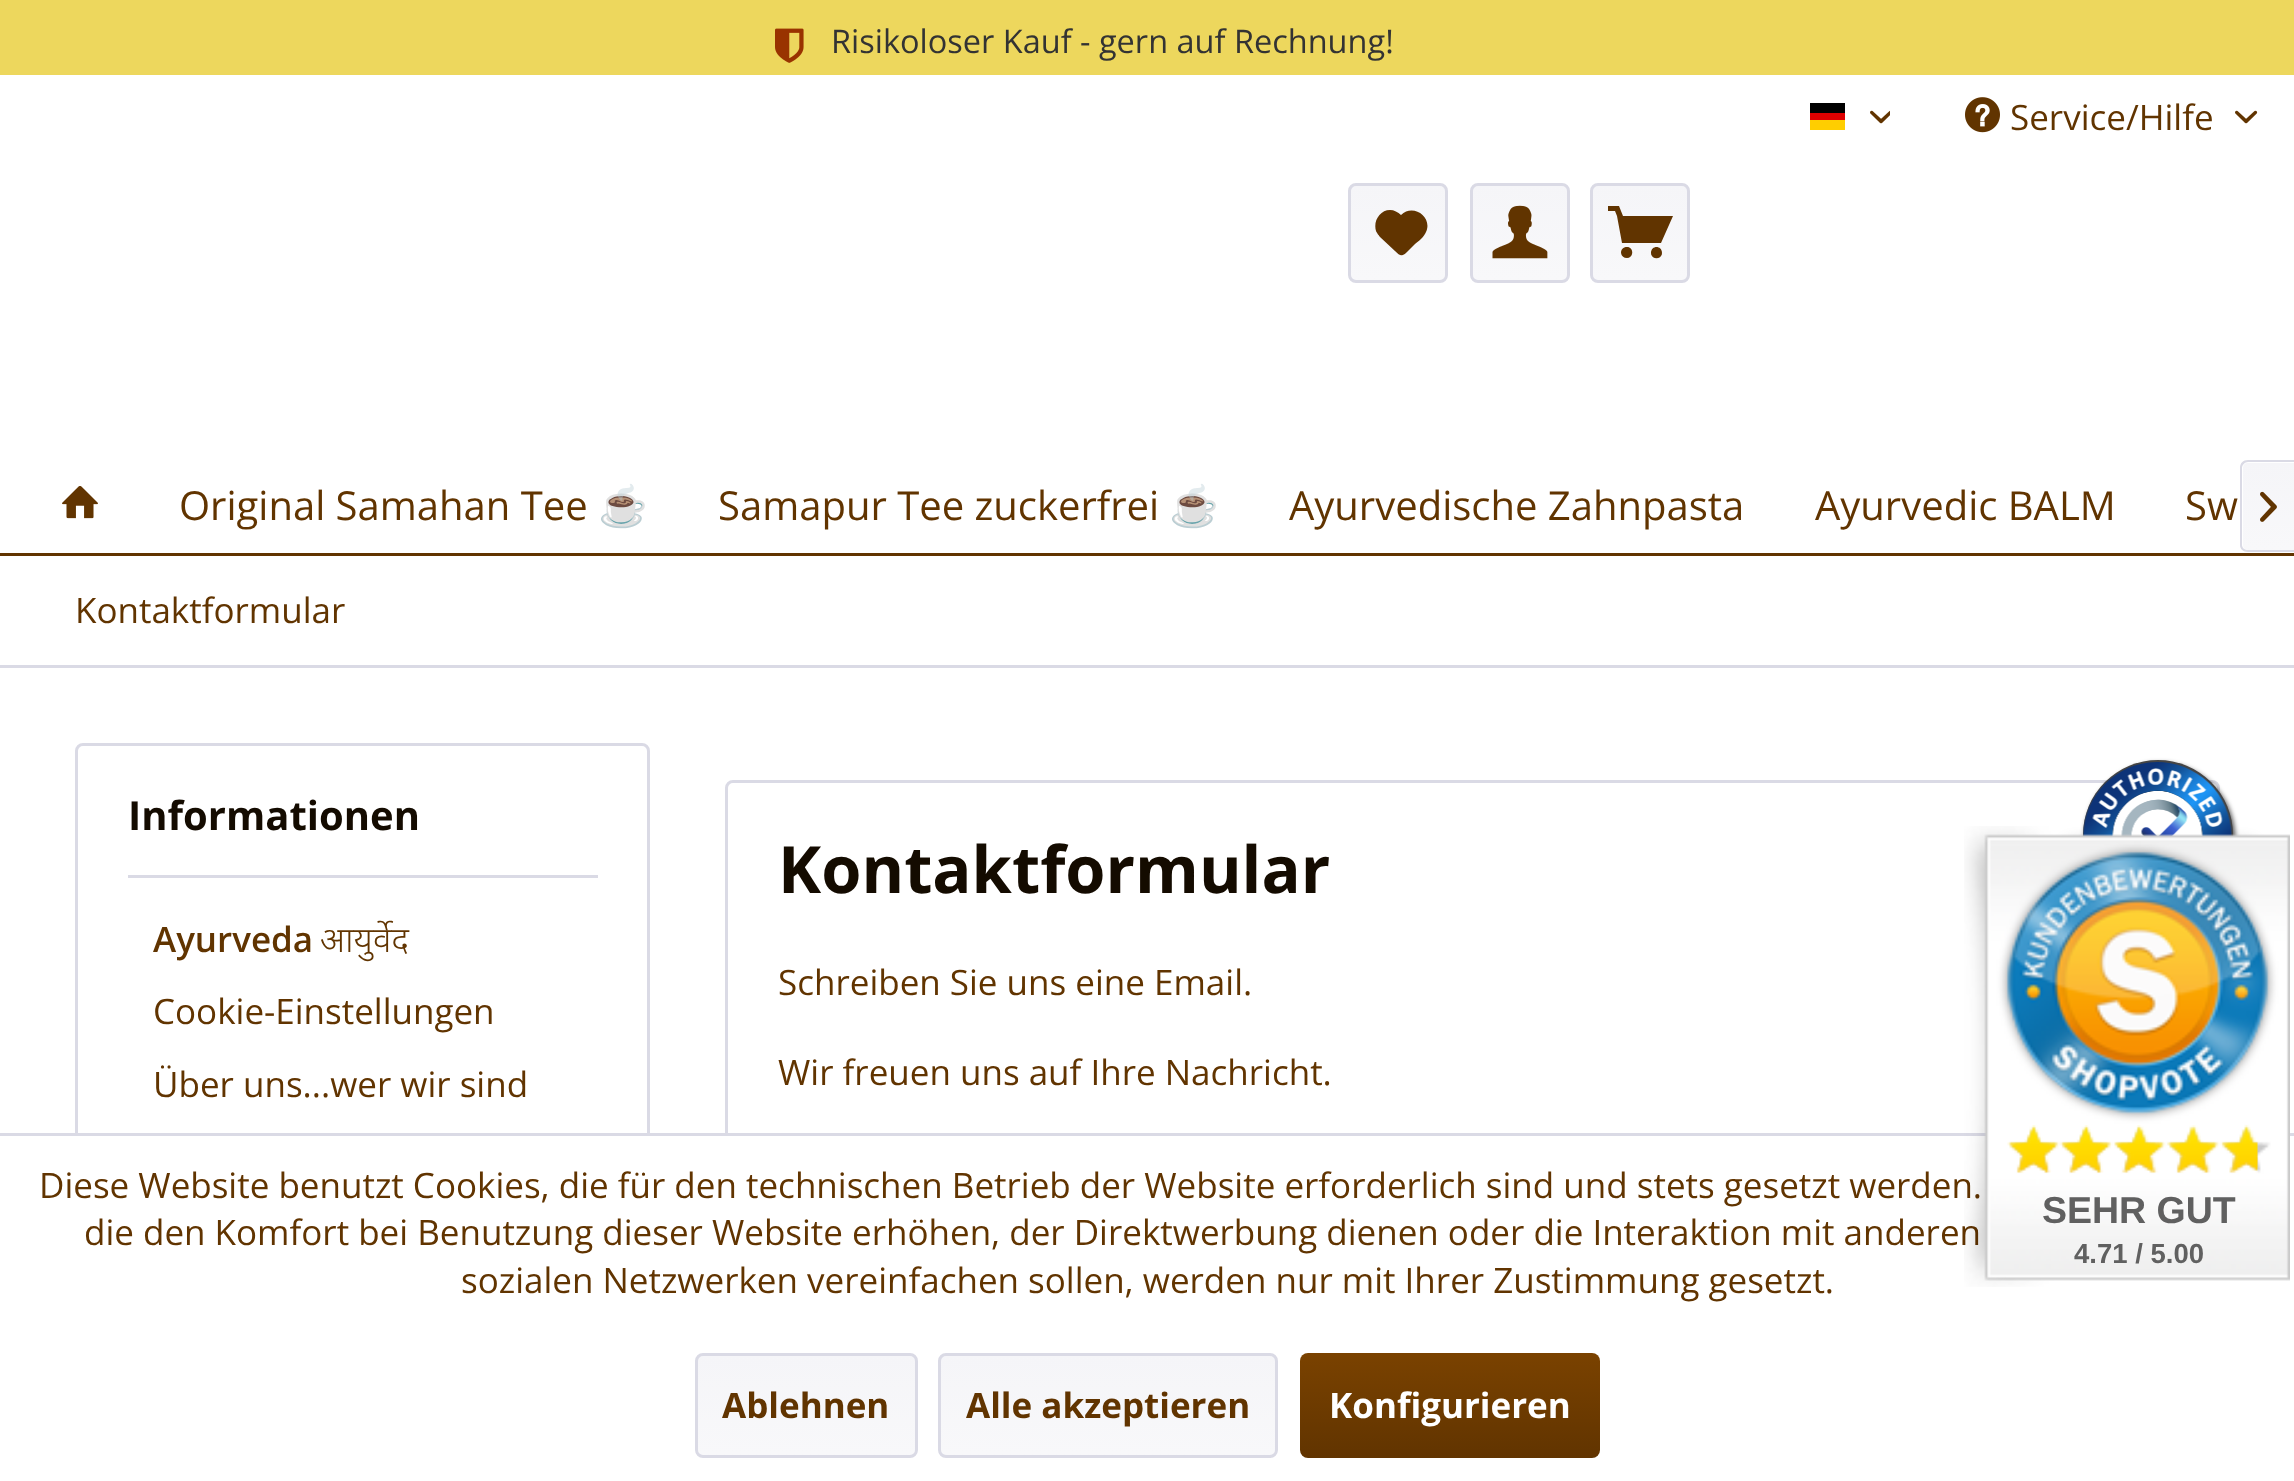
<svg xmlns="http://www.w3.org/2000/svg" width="2294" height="1481">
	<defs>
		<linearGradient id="g1" gradientUnits="userSpaceOnUse" x1="1398" y1="185" x2="1398" y2="280"><stop offset="0" stop-color="#F5F5F8" /><stop offset="1" stop-color="#F8F8FA" /></linearGradient>
		<linearGradient id="g2" gradientUnits="userSpaceOnUse" x1="1520" y1="185" x2="1520" y2="280"><stop offset="0" stop-color="#F5F5F8" /><stop offset="1" stop-color="#F8F8FA" /></linearGradient>
		<linearGradient id="g3" gradientUnits="userSpaceOnUse" x1="1640" y1="185" x2="1640" y2="280"><stop offset="0" stop-color="#F5F5F8" /><stop offset="1" stop-color="#F8F8FA" /></linearGradient>
		<linearGradient id="g4" gradientUnits="userSpaceOnUse" x1="2269" y1="463" x2="2269" y2="550"><stop offset="0" stop-color="#F5F5F8" /><stop offset="1" stop-color="#F8F8FA" /></linearGradient>
		<linearGradient id="g5" gradientUnits="userSpaceOnUse" x1="806" y1="1355" x2="806" y2="1455"><stop offset="0" stop-color="#F5F5F8" /><stop offset="1" stop-color="#F8F8FA" /></linearGradient>
		<linearGradient id="g6" gradientUnits="userSpaceOnUse" x1="1108" y1="1355" x2="1108" y2="1455"><stop offset="0" stop-color="#F5F5F8" /><stop offset="1" stop-color="#F8F8FA" /></linearGradient>
		<linearGradient id="g7" gradientUnits="userSpaceOnUse" x1="1450" y1="1353" x2="1450" y2="1458"><stop offset="0" stop-color="#7A4200" /><stop offset="1" stop-color="#613400" /></linearGradient>
	</defs>
	<rect width="100%" height="100%" fill="#FFFFFF" />
	<rect x="0" y="0" width="2294" height="75" fill="#EDD75D" />
	<image x="775" y="28" width="29" height="35" href="assets/img1.png" />
	<text x="831" y="53" font-family="Open Sans" font-size="32.5" fill="#333333">Risikoloser Kauf - gern auf Rechnung!</text>
	<rect x="1810" y="103" width="35" height="10" fill="#000000" />
	<rect x="1810" y="113" width="35" height="7" fill="#DD0000" />
	<rect x="1810" y="120" width="35" height="10" fill="#FFCE00" />
	<image x="1870" y="110" width="20" height="14" href="assets/img2.png" />
	<image x="1965" y="97" width="35" height="36" href="assets/img3.png" />
	<text x="2010" y="130" font-family="Open Sans" font-size="35" fill="#613400">Service/Hilfe</text>
	<image x="2235" y="110" width="23" height="14" href="assets/img4.png" />
	<rect x="1350" y="185" width="95" height="95" rx="5" fill="url(#g1)" />
	<rect x="1349.5" y="184.5" width="97" height="97" rx="6.5" fill="none" stroke="#DADAE5" stroke-width="3" />
	<path d="M1390 210C1380 210 1373 221 1376 231C1376 232 1380 237 1380 237L1395 251C1400 256 1402 257 1407 252L1415 244C1419 241 1424 237 1426 232C1433 217 1413 203 1401 215C1398 212 1394 210 1390 210Z" fill="#613400" />
	<rect x="1473" y="185" width="95" height="95" rx="5" fill="url(#g2)" />
	<rect x="1471.5" y="184.5" width="97" height="97" rx="6.5" fill="none" stroke="#DADAE5" stroke-width="3" />
	<image x="1492" y="205" width="56" height="54" href="assets/img5.png" />
	<rect x="1593" y="185" width="95" height="95" rx="5" fill="url(#g3)" />
	<rect x="1591.5" y="184.5" width="97" height="97" rx="6.5" fill="none" stroke="#DADAE5" stroke-width="3" />
	<path d="M1622 243H1661L1673 216H1623L1619 206H1608V211H1615L1617 216ZM1627 247C1619 247 1619 258 1627 258C1634 258 1634 247 1627 247ZM1662 253C1662 260 1651 260 1651 253C1651 245 1662 245 1662 253Z" fill="#613400" />
	<rect x="0" y="553" width="2294" height="3" fill="#613400" />
	<image x="62" y="486" width="36" height="33" href="assets/img6.png" />
	<text x="179" y="520" font-family="Open Sans" font-size="40" fill="#613400">Original Samahan Tee</text>
	<text x="598" y="520" font-family="Noto Color Emoji" font-size="40" fill="#613400">☕️</text>
	<text x="718" y="520" font-family="Open Sans" font-size="40" fill="#613400">Samapur Tee zuckerfrei</text>
	<text x="1169" y="520" font-family="Noto Color Emoji" font-size="40" fill="#613400">☕️</text>
	<g font-family="Open Sans" font-size="40" fill="#613400">
		<text x="1289" y="520">Ayurvedische Zahnpasta</text>
		<text x="1815" y="520">Ayurvedic BALM</text>
		<text x="2185" y="520">Sw</text>
	</g>
	<path d="M2248 463H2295V550H2248C2245 550 2243 548 2243 545V468C2243 465 2245 463 2248 463Z" fill="url(#g4)" />
	<path d="M2248 460H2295V552H2248C2243 552 2240 549 2240 545V468C2240 463 2243 460 2248 460ZM2248 462H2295V550H2248C2245 550 2242 548 2242 545V468C2242 465 2245 462 2248 462Z" fill="#DADAE5" fill-rule="evenodd" />
	<image x="2260" y="491" width="17" height="31" href="assets/img7.png" />
	<rect x="0" y="665" width="2294" height="3" fill="#DADAE5" />
	<text x="75" y="623" font-family="Open Sans" font-size="35" fill="#613400">Kontaktformular</text>
	<rect x="76.5" y="744.5" width="572" height="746" rx="6.5" fill="none" stroke="#DADAE5" stroke-width="3" />
	<rect x="128" y="875" width="470" height="3" fill="#DADAE5" />
	<text x="128" y="830" font-family="Open Sans" font-size="40" font-weight="700" fill="#140B00">Informationen</text>
	<text x="153" y="952" font-family="Open Sans" font-size="35" font-weight="600" fill="#613400">Ayurveda</text>
	<text x="320" y="952" font-family="Noto Sans" font-size="35" font-weight="300" fill="#613400">आयुर्वेद</text>
	<g font-family="Open Sans" font-size="35" fill="#613400">
		<text x="153" y="1024">Cookie-Einstellungen</text>
		<text x="153" y="1097">Über uns...wer wir sind</text>
	</g>
	<rect x="726.5" y="781.5" width="1492" height="402" rx="6.5" fill="none" stroke="#DADAE5" stroke-width="3" />
	<text x="778" y="893" font-family="Open Sans" font-size="65" font-weight="700" fill="#140B00">Kontaktformular</text>
	<g font-family="Open Sans" font-size="35" fill="#613400">
		<text x="778" y="995">Schreiben Sie uns eine Email.</text>
		<text x="778" y="1085">Wir freuen uns auf Ihre Nachricht.</text>
	</g>
	<rect x="2065" y="843" width="190" height="280" rx="10" fill="#000000" fill-opacity="0.3" filter="blur(7.5px)" />
	<rect x="2085" y="763" width="150" height="150" rx="75" fill="#000000" fill-opacity="0.7" filter="blur(2.5px)" />
	<circle cx="2158" cy="835" r="75" fill="#444444" />
	<image x="2082" y="762" width="150" height="76" href="assets/img8.png" />
	<rect x="75" y="1136" width="2164" height="345" fill="#FFFFFF" />
	<rect x="0" y="1133" width="2294" height="3" fill="#DADAE5" />
	<g font-family="Open Sans" font-size="35" fill="#613400">
		<text x="39" y="1198">Diese Website benutzt Cookies, die für den technischen Betrieb der Website erforderlich sind und stets gesetzt werden.</text>
		<text x="84" y="1245">die den Komfort bei Benutzung dieser Website erhöhen, der Direktwerbung dienen oder die Interaktion mit anderen</text>
		<text x="461" y="1293">sozialen Netzwerken vereinfachen sollen, werden nur mit Ihrer Zustimmung gesetzt.</text>
	</g>
	<rect x="698" y="1355" width="217" height="100" rx="5" fill="url(#g5)" />
	<rect x="696.5" y="1354.5" width="220" height="102" rx="6.5" fill="none" stroke="#DADAE5" stroke-width="3" />
	<text x="722" y="1418" font-family="Open Sans" font-size="35" font-weight="700" fill="#613400">Ablehnen</text>
	<rect x="940" y="1355" width="335" height="100" rx="5" fill="url(#g6)" />
	<rect x="939.5" y="1354.5" width="337" height="102" rx="6.5" fill="none" stroke="#DADAE5" stroke-width="3" />
	<text x="966" y="1418" font-family="Open Sans" font-size="35" font-weight="700" fill="#613400">Alle akzeptieren</text>
	<rect x="1300" y="1353" width="300" height="105" rx="8" fill="url(#g7)" />
	<text x="1329" y="1418" font-family="Open Sans" font-size="35" font-weight="700" fill="#FFFFFF">Konfigurieren</text>
	<image x="1964" y="826" width="326" height="461" href="assets/img9.png" />
	<image x="2007" y="1125" width="251" height="48" href="assets/img10.png" />
	<text x="2042" y="1223" font-family="Liberation Sans" font-size="37.5" font-weight="700" fill="#606060">SEHR GUT</text>
	<text x="2074" y="1263" font-family="Liberation Sans" font-size="27.5" font-weight="700" fill="#606060">4.71 / 5.00</text>
</svg>
